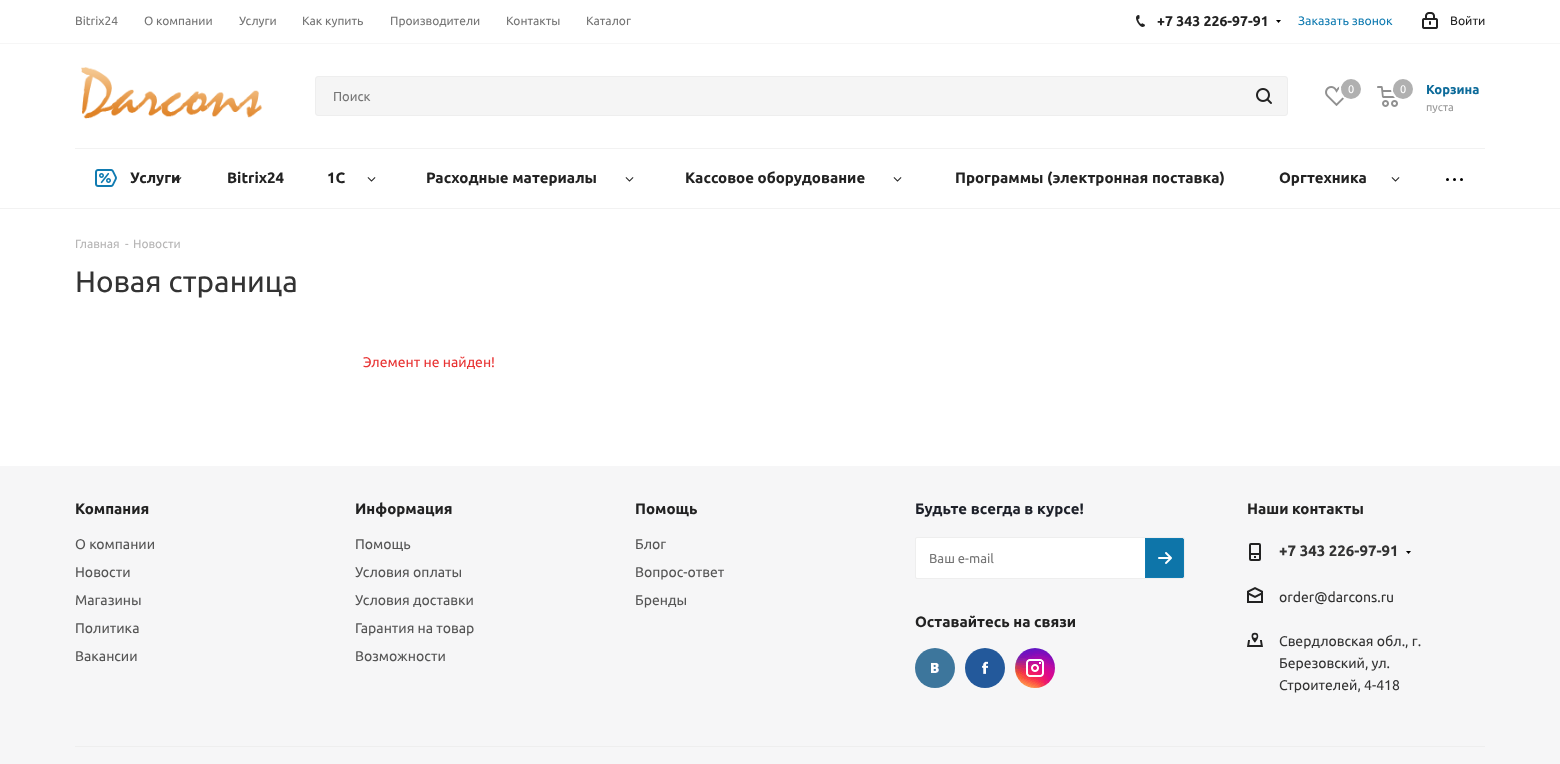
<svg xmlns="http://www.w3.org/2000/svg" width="1560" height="764">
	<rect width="100%" height="100%" fill="#FFFFFF" />
	<rect x="0" y="43" width="1560" height="1" fill="#F6F6F6" />
	<g font-family="Ubuntu" font-size="12" fill="#757575">
		<text x="75" y="25">Bitrix24</text>
		<text x="144" y="25">О компании</text>
		<text x="239" y="25">Услуги</text>
		<text x="302" y="25">Как купить</text>
		<text x="390" y="25">Производители</text>
		<text x="506" y="25">Контакты</text>
		<text x="586" y="25">Каталог</text>
	</g>
	<image x="1136" y="15" width="9" height="12" href="assets/img1.png" />
	<text x="1157" y="26" font-family="Ubuntu" font-size="14" font-weight="700" fill="#222222">+7 343 226-97-91</text>
	<image x="1276" y="20" width="5" height="3" href="assets/img2.png" />
	<text x="1298" y="25" font-family="Ubuntu" font-size="12.25" fill="#107BB1">Заказать звонок</text>
	<image x="1422" y="12" width="16" height="17" href="assets/img3.png" />
	<text x="1450" y="25" font-family="Ubuntu" font-size="12.25" fill="#222222">Войти</text>
	<image x="81" y="67" width="182" height="52" href="assets/img4.png" />
	<rect x="315.5" y="76.5" width="972" height="39" rx="2.5" fill="#F5F5F5" stroke="#EEEEEE" />
	<text x="333" y="101" font-family="Ubuntu" font-size="13" fill="#757575">Поиск</text>
	<image x="1256" y="88" width="16" height="16" href="assets/img5.png" />
	<image x="1325" y="86" width="21" height="20" href="assets/img6.png" />
	<circle cx="1351" cy="89" r="11" fill="none" stroke="#FFFFFF" stroke-width="2" />
	<circle cx="1351" cy="89" r="10" fill="#B0B0B0" />
	<text x="1348" y="93" font-family="Ubuntu" font-size="11" fill="#FFFFFF">0</text>
	<image x="1377" y="86" width="21" height="21" href="assets/img7.png" />
	<circle cx="1403" cy="89" r="11" fill="none" stroke="#FFFFFF" stroke-width="2" />
	<circle cx="1403" cy="89" r="10" fill="#B0B0B0" />
	<text x="1400" y="93" font-family="Ubuntu" font-size="11" fill="#FFFFFF">0</text>
	<text x="1426" y="94" font-family="Ubuntu" font-size="13" font-weight="700" fill="#0D6B9A">Корзина</text>
	<text x="1426" y="111" font-family="Ubuntu" font-size="11" fill="#999999">пуста</text>
	<rect x="75" y="148" width="1410" height="1" fill="#F2F2F2" />
	<image x="95" y="169" width="22" height="18" href="assets/img8.png" />
	<text x="130" y="183" font-family="Ubuntu" font-size="15" font-weight="700" fill="#222222">Услуги</text>
	<image x="174" y="177" width="8" height="5" href="assets/img9.png" />
	<g font-family="Ubuntu" font-size="15" font-weight="700" fill="#222222">
		<text x="227" y="183">Bitrix24</text>
		<text x="327" y="183">1С</text>
	</g>
	<image x="367" y="177" width="9" height="5" href="assets/img10.png" />
	<text x="426" y="183" font-family="Ubuntu" font-size="15" font-weight="700" fill="#222222">Расходные материалы</text>
	<image x="625" y="177" width="9" height="5" href="assets/img10.png" />
	<text x="685" y="183" font-family="Ubuntu" font-size="15" font-weight="700" fill="#222222">Кассовое оборудование</text>
	<image x="893" y="177" width="9" height="5" href="assets/img10.png" />
	<g font-family="Ubuntu" font-size="15" font-weight="700" fill="#222222">
		<text x="955" y="183">Программы (электронная поставка)</text>
		<text x="1279" y="183">Оргтехника</text>
	</g>
	<image x="1391" y="177" width="9" height="5" href="assets/img10.png" />
	<rect x="1446" y="178" width="17" height="3" fill="#000000" />
	<image x="1446" y="178" width="17" height="3" href="assets/img11.png" />
	<rect x="0" y="208" width="1560" height="1" fill="#F2F2F2" />
	<g font-family="Ubuntu" font-size="12" fill="#B6B5B5">
		<text x="75" y="248">Главная</text>
		<text x="125" y="248">-</text>
		<text x="133" y="248">Новости</text>
	</g>
	<text x="75" y="292" font-family="Ubuntu" font-size="29.75" fill="#333333">Новая страница</text>
	<text x="363" y="367" font-family="Ubuntu" font-size="14" fill="#E83333">Элемент не найден!</text>
	<rect x="0" y="466" width="1560" height="298" fill="#F6F6F7" />
	<text x="75" y="514" font-family="Ubuntu" font-size="15" font-weight="700" fill="#222222">Компания</text>
	<g font-family="Ubuntu" font-size="14" fill="#555555">
		<text x="75" y="549">О компании</text>
		<text x="75" y="577">Новости</text>
		<text x="75" y="605">Магазины</text>
		<text x="75" y="633">Политика</text>
		<text x="75" y="661">Вакансии</text>
	</g>
	<text x="355" y="514" font-family="Ubuntu" font-size="15" font-weight="700" fill="#222222">Информация</text>
	<g font-family="Ubuntu" font-size="14" fill="#555555">
		<text x="355" y="549">Помощь</text>
		<text x="355" y="577">Условия оплаты</text>
		<text x="355" y="605">Условия доставки</text>
		<text x="355" y="633">Гарантия на товар</text>
		<text x="355" y="661">Возможности</text>
	</g>
	<text x="635" y="514" font-family="Ubuntu" font-size="15" font-weight="700" fill="#222222">Помощь</text>
	<g font-family="Ubuntu" font-size="14" fill="#555555">
		<text x="635" y="549">Блог</text>
		<text x="635" y="577">Вопрос-ответ</text>
		<text x="635" y="605">Бренды</text>
	</g>
	<text x="915" y="514" font-family="Ubuntu" font-size="15" font-weight="700" fill="#1D2029">Будьте всегда в курсе!</text>
	<rect x="915.5" y="537.5" width="269" height="41" rx="1.5" fill="#FFFFFF" stroke="#EEEEEE" />
	<text x="929" y="563" font-family="Ubuntu" font-size="13" fill="#757575">Ваш e-mail</text>
	<path d="M1145 538H1182C1183 538 1184 539 1184 540V576C1184 577 1183 578 1182 578H1145Z" fill="#0E75A9" />
	<image x="1158" y="552" width="14" height="12" href="assets/img12.png" />
	<path d="M1145.5 538.5H1182C1183 538.5 1183.5 539 1183.5 540V576C1183.5 577 1183 577.5 1182 577.5H1145.5Z" fill="none" stroke="#107BB1" />
	<text x="915" y="627" font-family="Ubuntu" font-size="15" font-weight="700" fill="#222222">Оставайтесь на связи</text>
	<image x="915" y="648" width="40" height="40" href="assets/img13.png" />
	<image x="965" y="648" width="40" height="40" href="assets/img14.png" />
	<image x="1015" y="648" width="40" height="40" href="assets/img15.png" />
	<text x="1247" y="514" font-family="Ubuntu" font-size="15" font-weight="700" fill="#222222">Наши контакты</text>
	<image x="1249" y="543" width="12" height="18" href="assets/img16.png" />
	<text x="1279" y="556" font-family="Ubuntu" font-size="15" font-weight="700" fill="#333333">+7 343 226-97-91</text>
	<image x="1406" y="551" width="5" height="3" href="assets/img17.png" />
	<image x="1247" y="587" width="16" height="16" href="assets/img18.png" />
	<text x="1279" y="602" font-family="Ubuntu" font-size="14" fill="#333333">order@darcons.ru</text>
	<image x="1247" y="632" width="16" height="15" href="assets/img19.png" />
	<g font-family="Ubuntu" font-size="14" fill="#333333">
		<text x="1279" y="646">Свердловская обл., г.</text>
		<text x="1279" y="668">Березовский, ул.</text>
		<text x="1279" y="690">Строителей, 4-418</text>
	</g>
	<rect x="75" y="746" width="1410" height="1" fill="#EEEEEE" />
</svg>
